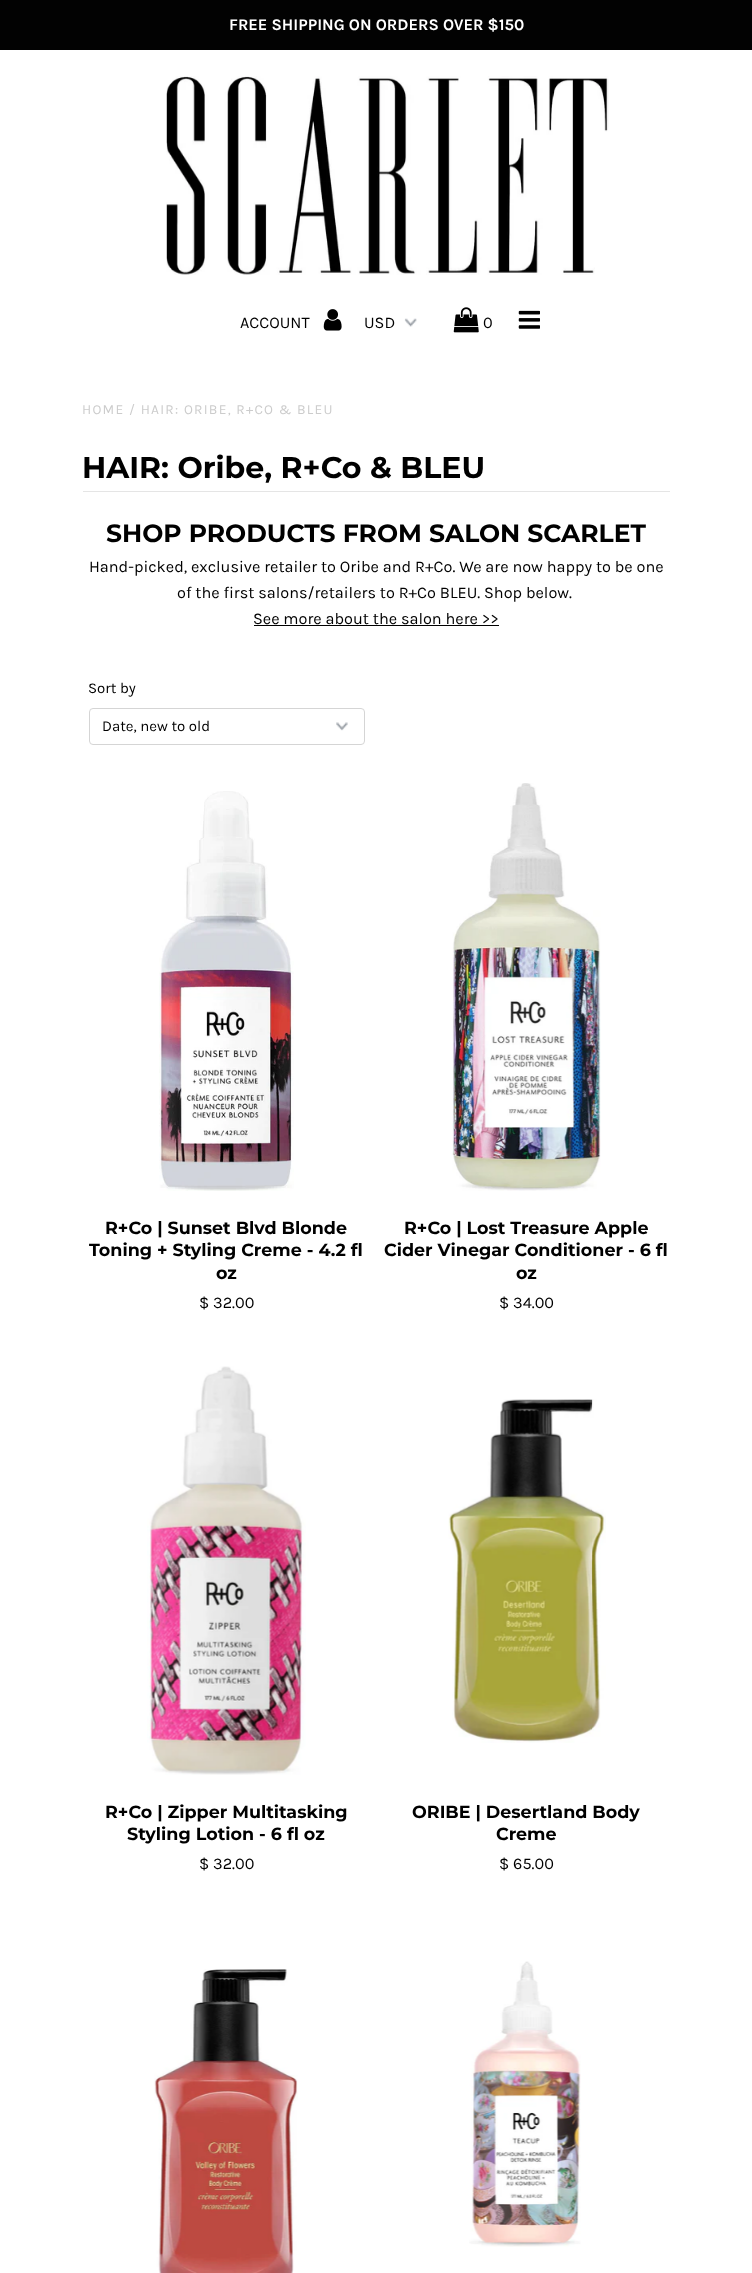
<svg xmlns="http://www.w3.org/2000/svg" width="752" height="2273">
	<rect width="100%" height="100%" fill="#FFFFFF" />
	<rect x="0" y="0" width="752" height="50" fill="#020202" />
	<text x="229" y="30" font-family="Karla" font-size="16.25" font-weight="700" fill="#FFFFFF">FREE SHIPPING ON ORDERS OVER $150</text>
	<image x="166" y="76" width="443" height="199" href="assets/img1.png" />
	<text x="240" y="328" font-family="Karla" font-size="16.25" fill="#000000">ACCOUNT</text>
	<image x="323" y="309" width="19" height="22" href="assets/img2.png" />
	<image x="404" y="318" width="13" height="9" href="assets/img3.png" />
	<text x="364" y="328" font-family="Karla" font-size="16.25" fill="#000000">USD</text>
	<image x="453" y="307" width="26" height="26" href="assets/img4.png" />
	<text x="483" y="328" font-family="Karla" font-size="16.25" fill="#000000">0</text>
	<image x="518" y="310" width="22" height="19" href="assets/img5.png" />
	<text x="82" y="414" font-family="Karla" font-size="13.75" letter-spacing="1.25" fill="#CCCCCC">HOME / HAIR: ORIBE, R+CO &amp; BLEU</text>
	<rect x="83" y="491" width="587" height="1" fill="#E5E5E5" />
	<text x="82" y="478" font-family="Montserrat" font-size="30" font-weight="700" fill="#000000">HAIR: Oribe, R+Co &amp; BLEU</text>
	<text x="106" y="542" font-family="Montserrat" font-size="25" font-weight="700" fill="#000000">SHOP PRODUCTS FROM SALON SCARLET</text>
	<g font-family="Karla" font-size="16.25" fill="#000000">
		<text x="89" y="572">Hand-picked, exclusive retailer to Oribe and R+Co. We are now happy to be one</text>
		<text x="177" y="598">of the first salons/retailers to R+Co BLEU. Shop below.</text>
		<text x="253" y="624">See more about the salon here &gt;&gt;</text>
	</g>
	<rect x="254" y="625" width="245" height="1" fill="#000000" />
	<text x="88" y="693" font-family="Karla" font-size="15" fill="#000000">Sort by</text>
	<image x="336" y="722" width="12" height="9" href="assets/img6.png" />
	<rect x="89.5" y="708.5" width="275" height="36" rx="3.5" fill="none" stroke="#D5D5D5" />
	<text x="102" y="731" font-family="Karla" font-size="15" fill="#000000">Date, new to old</text>
	<image x="159" y="791" width="135" height="400" href="assets/img7.png" />
	<g font-family="Montserrat" font-size="17.5" font-weight="700" fill="#000000">
		<text x="105" y="1234">R+Co | Sunset Blvd Blonde</text>
		<text x="89" y="1256">Toning + Styling Creme - 4.2 fl</text>
		<text x="216" y="1279">oz</text>
	</g>
	<text x="199" y="1308" font-family="Karla" font-size="16.25" fill="#000000">$ 32.00</text>
	<image x="452" y="783" width="149" height="408" href="assets/img8.png" />
	<g font-family="Montserrat" font-size="17.5" font-weight="700" fill="#000000">
		<text x="404" y="1234">R+Co | Lost Treasure Apple</text>
		<text x="384" y="1256">Cider Vinegar Conditioner - 6 fl</text>
		<text x="516" y="1279">oz</text>
	</g>
	<text x="499" y="1308" font-family="Karla" font-size="16.25" fill="#000000">$ 34.00</text>
	<image x="147" y="1366" width="159" height="409" href="assets/img9.png" />
	<g font-family="Montserrat" font-size="17.5" font-weight="700" fill="#000000">
		<text x="105" y="1818">R+Co | Zipper Multitasking</text>
		<text x="127" y="1840">Styling Lotion - 6 fl oz</text>
	</g>
	<text x="199" y="1869" font-family="Karla" font-size="16.25" fill="#000000">$ 32.00</text>
	<image x="448" y="1399" width="158" height="344" href="assets/img10.png" />
	<g font-family="Montserrat" font-size="17.5" font-weight="700" fill="#000000">
		<text x="412" y="1818">ORIBE | Desertland Body</text>
		<text x="496" y="1840">Creme</text>
	</g>
	<text x="499" y="1869" font-family="Karla" font-size="16.25" fill="#000000">$ 65.00</text>
	<image x="154" y="1969" width="144" height="304" href="assets/img11.png" />
	<image x="469" y="1961" width="112" height="286" href="assets/img12.png" />
</svg>
